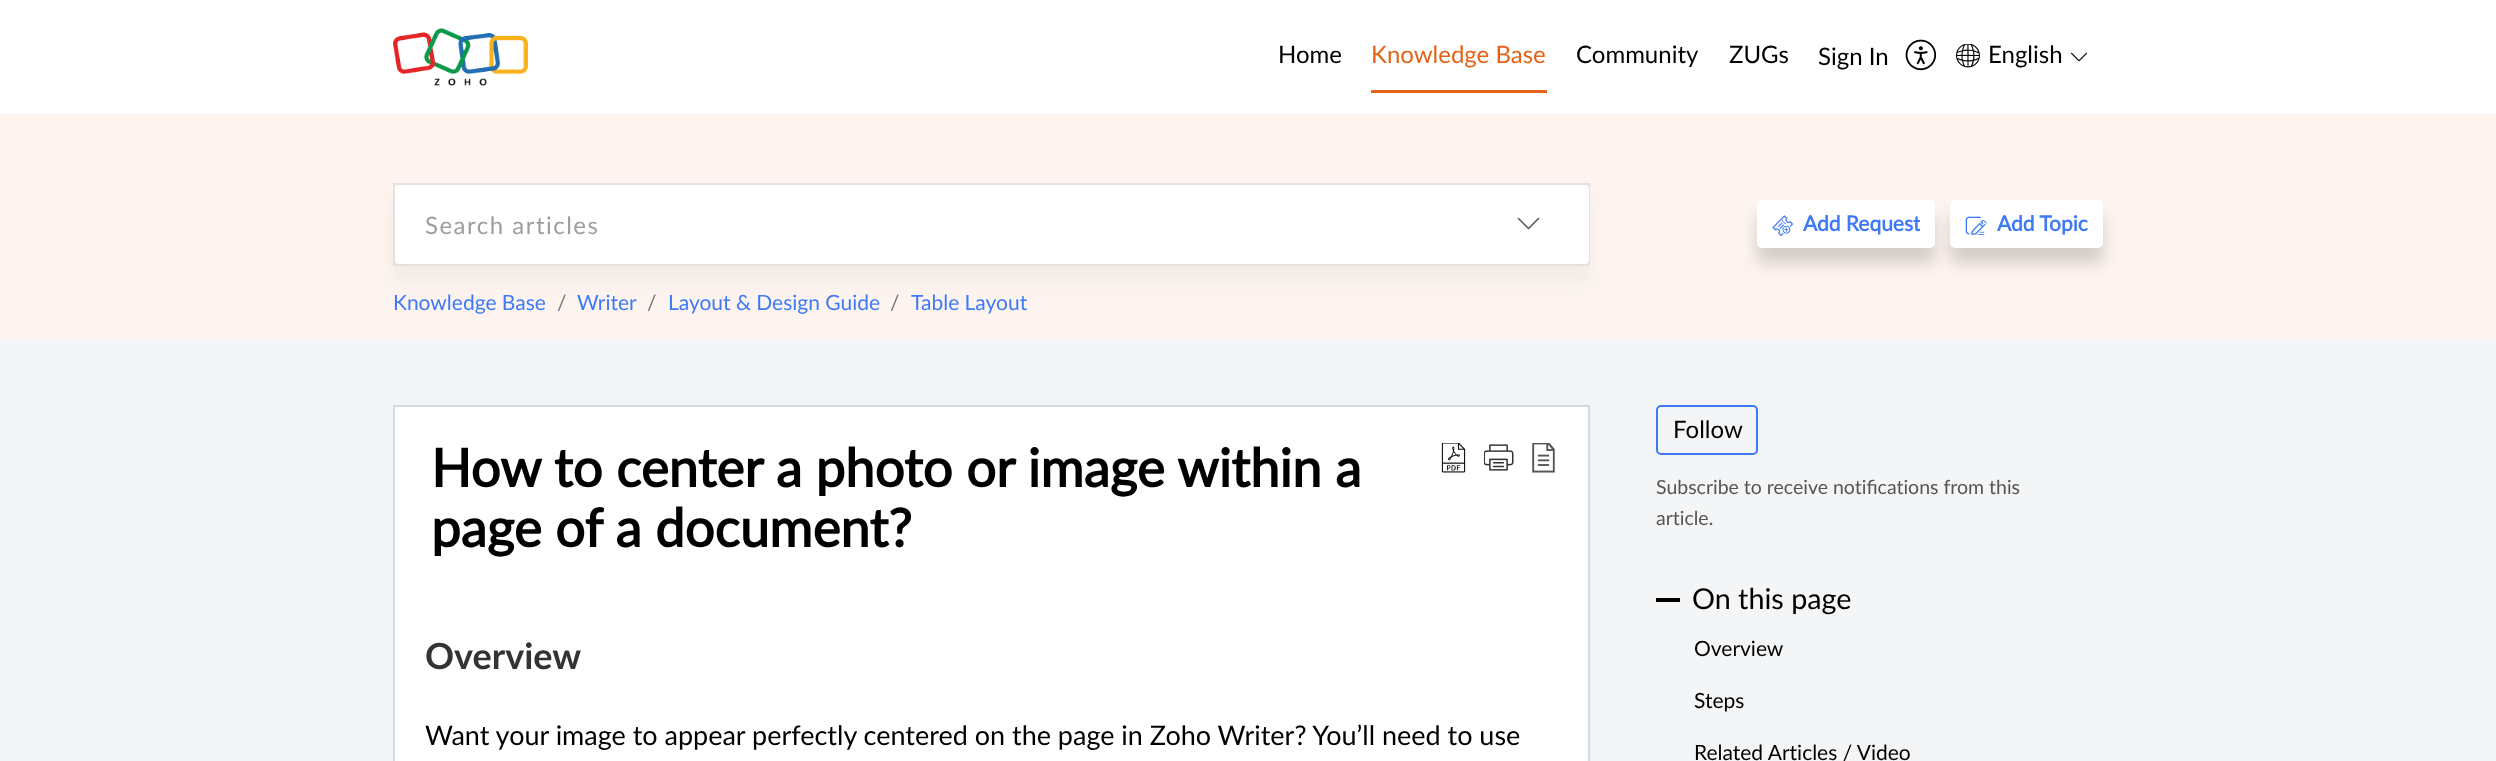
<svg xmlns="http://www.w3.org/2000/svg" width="2496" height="761">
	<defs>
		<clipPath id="clip1"><rect x="1803" y="209" width="117" height="30" /></clipPath>
	</defs>
	<rect width="100%" height="100%" fill="#F3F5F7" />
	<rect x="0" y="0" width="2496" height="114" fill="#FFFFFF" />
	<image x="393" y="28" width="135" height="58" href="assets/img1.png" />
	<text x="1278" y="63" font-family="Lato" font-size="24" fill="#000000">Home</text>
	<rect x="1371" y="90" width="176" height="3" fill="#E46317" />
	<text x="1371" y="63" font-family="Lato" font-size="24" fill="#E46317">Knowledge Base</text>
	<g font-family="Lato" font-size="24" fill="#000000">
		<text x="1576" y="63">Community</text>
		<text x="1729" y="63">ZUGs</text>
		<text x="1818" y="65">Sign In</text>
	</g>
	<image x="1905" y="39" width="32" height="32" href="assets/img2.png" />
	<image x="1956" y="44" width="24" height="24" href="assets/img3.png" />
	<text x="1988" y="63" font-family="Lato" font-size="24" fill="#000000">English</text>
	<image x="2070" y="52" width="17" height="10" href="assets/img4.png" />
	<rect x="0" y="114" width="2496" height="225" fill="#FDF4EF" />
	<rect x="393" y="198" width="1197" height="83" fill="#F0E8E5" fill-opacity="0.84" filter="blur(7.5px)" />
	<rect x="394" y="184" width="1195" height="81" fill="none" stroke="#EADFDB" stroke-width="2" />
	<rect x="395" y="185" width="1194" height="79" rx="5" fill="#FFFFFF" />
	<rect x="395" y="185" width="1074" height="79" rx="5" fill="#FFFFFF" />
	<text x="425" y="234" font-family="Lato" font-size="24" letter-spacing="1.5" fill="#9E9E9E">Search articles</text>
	<path d="M1469 185H1584C1587 185 1589 187 1589 190V259C1589 262 1587 264 1584 264H1469Z" fill="#FFFFFF" fill-opacity="0.5" />
	<image x="1517" y="217" width="23" height="13" href="assets/img5.png" />
	<rect x="1757" y="215" width="178" height="48" rx="5" fill="#000000" fill-opacity="0.16" filter="blur(7.5px)" />
	<rect x="1757" y="200" width="178" height="48" rx="5" fill="#FFFFFF" />
	<image x="1772" y="215" width="22" height="22" href="assets/img6.png" />
	<g clip-path="url(#clip1)">
		<text x="1803" y="231" font-family="Lato" font-size="21" font-weight="700" fill="#3E7AF7">Add Request</text>
	</g>
	<rect x="1950" y="215" width="153" height="48" rx="5" fill="#000000" fill-opacity="0.16" filter="blur(7.5px)" />
	<rect x="1950" y="200" width="153" height="48" rx="5" fill="#FFFFFF" />
	<image x="1965" y="216" width="22" height="19" href="assets/img7.png" />
	<text x="1997" y="231" font-family="Lato" font-size="21" font-weight="700" fill="#3E7AF7">Add Topic</text>
	<text x="393" y="310" font-family="Lato" font-size="21" fill="#3E7AF7">Knowledge Base</text>
	<text x="557" y="310" font-family="Lato" font-size="21" fill="#777777">/</text>
	<text x="577" y="310" font-family="Lato" font-size="21" fill="#3E7AF7">Writer</text>
	<text x="647" y="310" font-family="Lato" font-size="21" fill="#777777">/</text>
	<text x="668" y="310" font-family="Lato" font-size="21" fill="#3E7AF7">Layout &amp; Design Guide</text>
	<text x="890" y="310" font-family="Lato" font-size="21" fill="#777777">/</text>
	<text x="911" y="310" font-family="Lato" font-size="21" fill="#3E7AF7">Table Layout</text>
	<rect x="394" y="406" width="1195" height="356" fill="#FFFFFF" stroke="#D4DADF" stroke-width="2" />
	<g font-family="Lato" font-size="52.75" font-weight="700" fill="#000000">
		<text x="431" y="487">How to center a photo or image within a</text>
		<text x="431" y="547">page of a document?</text>
	</g>
	<image x="1441" y="443" width="25" height="30" href="assets/img8.png" />
	<image x="1484" y="444" width="30" height="27" href="assets/img9.png" />
	<image x="1532" y="443" width="23" height="30" href="assets/img10.png" />
	<text x="425" y="669" font-family="'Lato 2'" font-size="36" font-weight="700" fill="#333333">Overview</text>
	<text x="425" y="745" font-family="Lato" font-size="27" fill="#000000">Want your image to appear perfectly centered on the page in Zoho Writer? You’ll need to use</text>
	<rect x="1657" y="406" width="100" height="48" rx="4" fill="none" stroke="#3E7AF7" stroke-width="2" />
	<text x="1673" y="438" font-family="Lato" font-size="24" fill="#000000">Follow</text>
	<g font-family="Lato" font-size="19.5" fill="#555555">
		<text x="1656" y="494">Subscribe to receive notifications from this</text>
		<text x="1656" y="525">article.</text>
	</g>
	<rect x="1656" y="598" width="24" height="4" fill="#000000" />
	<text x="1692" y="609" font-family="Lato" font-size="28.75" fill="#000000">On this page</text>
	<g font-family="Lato" font-size="21" fill="#000000">
		<text x="1694" y="656">Overview</text>
		<text x="1694" y="708">Steps</text>
		<text x="1694" y="760">Related Articles / Video</text>
	</g>
</svg>
